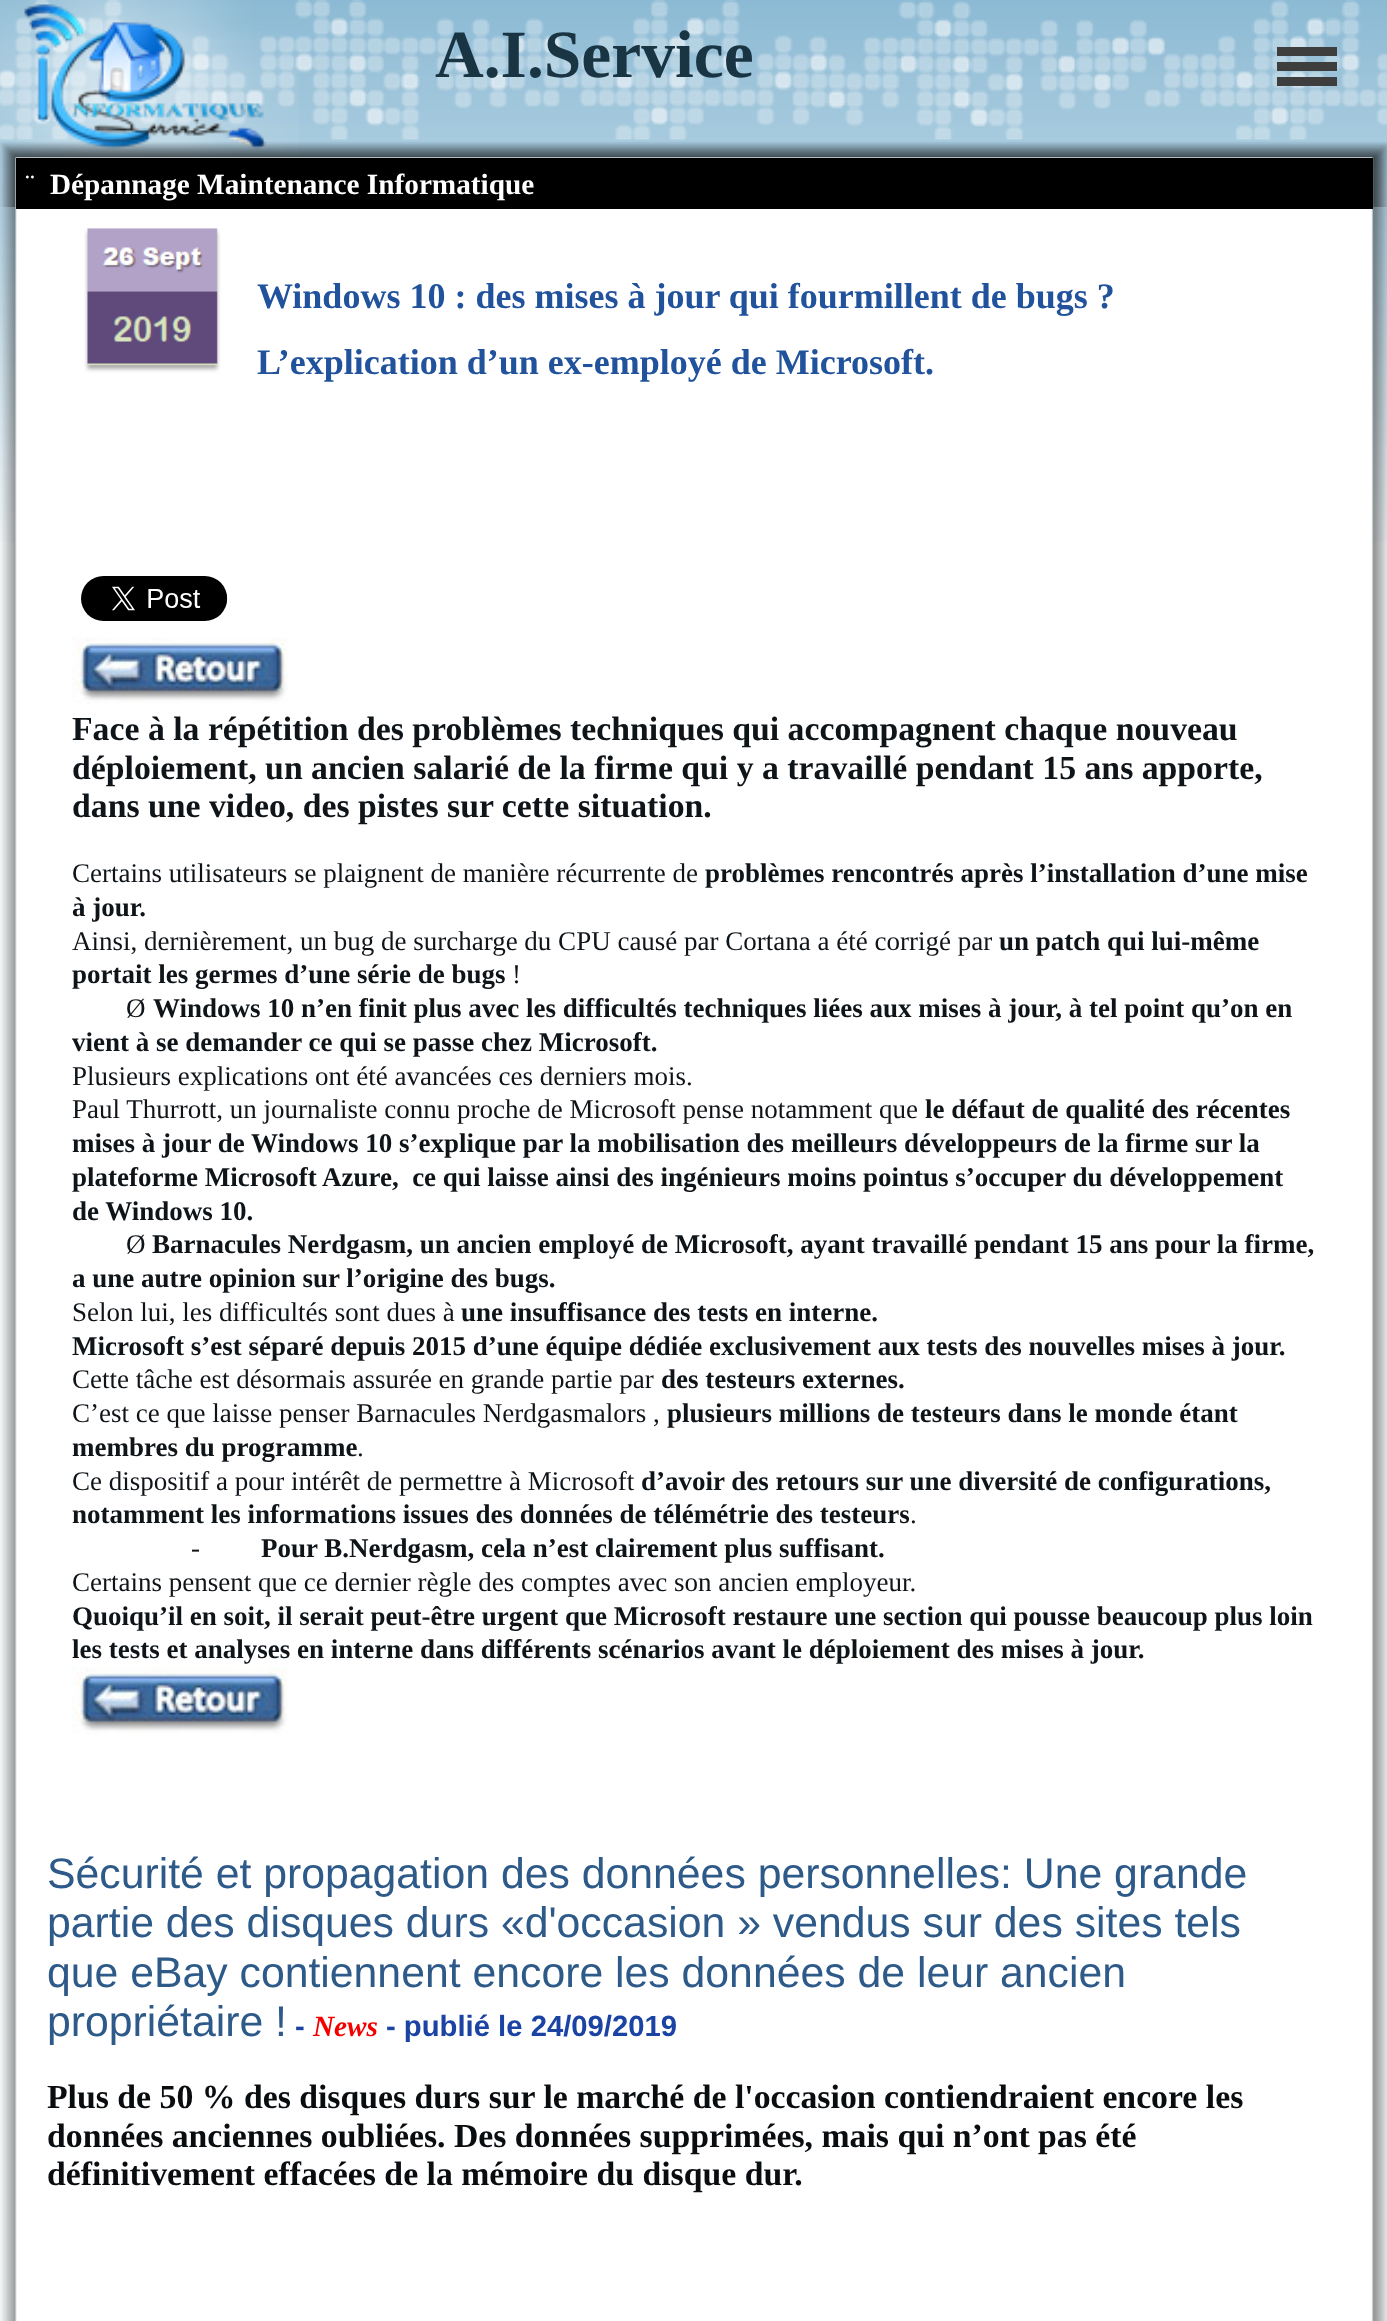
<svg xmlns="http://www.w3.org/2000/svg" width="1387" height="2321">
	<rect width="100%" height="100%" fill="#F8FBFC" />
	<image x="0" y="0" width="1387" height="542" href="assets/img1.png" />
	<image x="0" y="0" width="1387" height="140" href="assets/img2.png" />
	<image x="0" y="0" width="299" height="196" href="assets/img3.png" />
	<text x="435" y="77" font-family="Liberation Serif" font-size="67.5" font-weight="700" fill="#193443">A.I.Service</text>
	<path d="M1277 47H1337V56H1277ZM1277 62H1337V71H1277ZM1277 77H1337V86H1277Z" fill="#3E3E3E" />
	<image x="0" y="142" width="1323" height="65" href="assets/img4.png" />
	<image x="0" y="142" width="1323" height="65" href="assets/img5.png" />
	<image x="1323" y="142" width="64" height="65" href="assets/img6.png" />
	<image x="1323" y="142" width="64" height="65" href="assets/img7.png" />
	<image x="0" y="207" width="1323" height="2114" href="assets/img12.png" />
	<image x="1323" y="207" width="64" height="2114" href="assets/img13.png" />
	<rect x="16" y="158" width="1357" height="51" fill="#000000" />
	<text x="25" y="194" font-family="Liberation Serif" font-size="29.25" fill="#FFFFFF">¨</text>
	<text x="50" y="194" font-family="Liberation Serif" font-size="29.25" font-weight="700" fill="#FFFFFF">Dépannage Maintenance Informatique</text>
	<image x="84" y="228" width="137" height="145" href="assets/img8.png" />
	<g font-family="Liberation Serif" font-size="36" font-weight="700" fill="#21529C">
		<text x="257" y="308">Windows 10 : des mises à jour qui fourmillent de bugs ?</text>
		<text x="257" y="374">L’explication d’un ex-employé de Microsoft.</text>
	</g>
	<image x="81" y="576" width="147" height="45" href="assets/img9.png" />
	<image x="72" y="637" width="216" height="67" href="assets/img10.png" />
	<g font-family="Liberation Serif" font-size="33.75" font-weight="700" fill="#0F1419">
		<text x="72" y="740">Face à la répétition des problèmes techniques qui accompagnent chaque nouveau</text>
		<text x="72" y="779">déploiement, un ancien salarié de la firme qui y a travaillé pendant 15 ans apporte,</text>
		<text x="72" y="817">dans une video, des pistes sur cette situation.</text>
	</g>
	<text x="72" y="882" font-family="Liberation Serif" font-size="27" fill="#0F1419">Certains utilisateurs se plaignent de manière récurrente de</text>
	<g font-family="Liberation Serif" font-size="27" font-weight="700" fill="#0F1419">
		<text x="705" y="882">problèmes rencontrés après l’installation d’une mise</text>
		<text x="72" y="916">à jour.</text>
	</g>
	<text x="72" y="950" font-family="Liberation Serif" font-size="27" fill="#0F1419">Ainsi, dernièrement, un bug de surcharge du CPU causé par Cortana a été corrigé par</text>
	<g font-family="Liberation Serif" font-size="27" font-weight="700" fill="#0F1419">
		<text x="999" y="950">un patch qui lui-même</text>
		<text x="72" y="983">portait les germes d’une série de bugs</text>
	</g>
	<g font-family="Liberation Serif" font-size="27" fill="#0F1419">
		<text x="512" y="983">!</text>
		<text x="126" y="1017">Ø</text>
	</g>
	<g font-family="Liberation Serif" font-size="27" font-weight="700" fill="#0F1419">
		<text x="153" y="1017">Windows 10 n’en finit plus avec les difficultés techniques liées aux mises à jour, à tel point qu’on en</text>
		<text x="72" y="1051">vient à se demander ce qui se passe chez Microsoft.</text>
	</g>
	<g font-family="Liberation Serif" font-size="27" fill="#0F1419">
		<text x="72" y="1085">Plusieurs explications ont été avancées ces derniers mois.</text>
		<text x="72" y="1118">Paul Thurrott, un journaliste connu proche de Microsoft pense notamment que</text>
	</g>
	<g font-family="Liberation Serif" font-size="27" font-weight="700" fill="#0F1419">
		<text x="925" y="1118">le défaut de qualité des récentes</text>
		<text x="72" y="1152">mises à jour de Windows 10 s’explique par la mobilisation des meilleurs développeurs de la firme sur la</text>
		<text x="72" y="1186" xml:space="preserve">plateforme Microsoft Azure,  ce qui laisse ainsi des ingénieurs moins pointus s’occuper du développement</text>
		<text x="72" y="1220">de Windows 10.</text>
	</g>
	<text x="126" y="1253" font-family="Liberation Serif" font-size="27" fill="#0F1419">Ø</text>
	<g font-family="Liberation Serif" font-size="27" font-weight="700" fill="#0F1419">
		<text x="152" y="1253">Barnacules Nerdgasm, un ancien employé de Microsoft, ayant travaillé pendant 15 ans pour la firme,</text>
		<text x="72" y="1287">a une autre opinion sur l’origine des bugs.</text>
	</g>
	<text x="72" y="1321" font-family="Liberation Serif" font-size="27" fill="#0F1419">Selon lui, les difficultés sont dues à</text>
	<g font-family="Liberation Serif" font-size="27" font-weight="700" fill="#0F1419">
		<text x="461" y="1321">une insuffisance des tests en interne.</text>
		<text x="72" y="1355">Microsoft s’est séparé depuis 2015 d’une équipe dédiée exclusivement aux tests des nouvelles mises à jour.</text>
	</g>
	<text x="72" y="1388" font-family="Liberation Serif" font-size="27" fill="#0F1419">Cette tâche est désormais assurée en grande partie par</text>
	<text x="661" y="1388" font-family="Liberation Serif" font-size="27" font-weight="700" fill="#0F1419">des testeurs externes.</text>
	<text x="72" y="1422" font-family="Liberation Serif" font-size="27" fill="#0F1419">C’est ce que laisse penser Barnacules Nerdgasmalors ,</text>
	<g font-family="Liberation Serif" font-size="27" font-weight="700" fill="#0F1419">
		<text x="667" y="1422">plusieurs millions de testeurs dans le monde étant</text>
		<text x="72" y="1456">membres du programme</text>
	</g>
	<g font-family="Liberation Serif" font-size="27" fill="#0F1419">
		<text x="357" y="1456">.</text>
		<text x="72" y="1490">Ce dispositif a pour intérêt de permettre à Microsoft</text>
	</g>
	<g font-family="Liberation Serif" font-size="27" font-weight="700" fill="#0F1419">
		<text x="641" y="1490">d’avoir des retours sur une diversité de configurations,</text>
		<text x="72" y="1523">notamment les informations issues des données de télémétrie des testeurs</text>
	</g>
	<g font-family="Liberation Serif" font-size="27" fill="#0F1419">
		<text x="910" y="1523">.</text>
		<text x="191" y="1557">-</text>
	</g>
	<text x="261" y="1557" font-family="Liberation Serif" font-size="27" font-weight="700" fill="#0F1419">Pour B.Nerdgasm, cela n’est clairement plus suffisant.</text>
	<text x="72" y="1591" font-family="Liberation Serif" font-size="27" fill="#0F1419">Certains pensent que ce dernier règle des comptes avec son ancien employeur.</text>
	<g font-family="Liberation Serif" font-size="27" font-weight="700" fill="#0F1419">
		<text x="72" y="1625">Quoiqu’il en soit, il serait peut-être urgent que Microsoft restaure une section qui pousse beaucoup plus loin</text>
		<text x="72" y="1658">les tests et analyses en interne dans différents scénarios avant le déploiement des mises à jour.</text>
	</g>
	<image x="72" y="1667" width="216" height="67" href="assets/img11.png" />
	<g font-family="Liberation Sans" font-size="42.75" fill="#2D5A88">
		<text x="47" y="1888">Sécurité et propagation des données personnelles: Une grande</text>
		<text x="47" y="1937">partie des disques durs «d'occasion » vendus sur des sites tels</text>
		<text x="47" y="1987">que eBay contiennent encore les données de leur ancien</text>
		<text x="47" y="2036">propriétaire !</text>
	</g>
	<text x="295" y="2036" font-family="Liberation Sans" font-size="29.25" font-weight="700" fill="#1A43A4">-</text>
	<text x="313" y="2036" font-family="Liberation Serif" font-size="29.25" font-weight="700" font-style="italic" fill="#F50000">News</text>
	<text x="386" y="2036" font-family="Liberation Sans" font-size="29.25" font-weight="700" fill="#1A43A4">- publié le 24/09/2019</text>
	<g font-family="Liberation Serif" font-size="33.75" font-weight="700" fill="#0A0D10">
		<text x="47" y="2108">Plus de 50 % des disques durs sur le marché de l'occasion contiendraient encore les</text>
		<text x="47" y="2147">données anciennes oubliées. Des données supprimées, mais qui n’ont pas été</text>
		<text x="47" y="2185">définitivement effacées de la mémoire du disque dur.</text>
	</g>
</svg>
